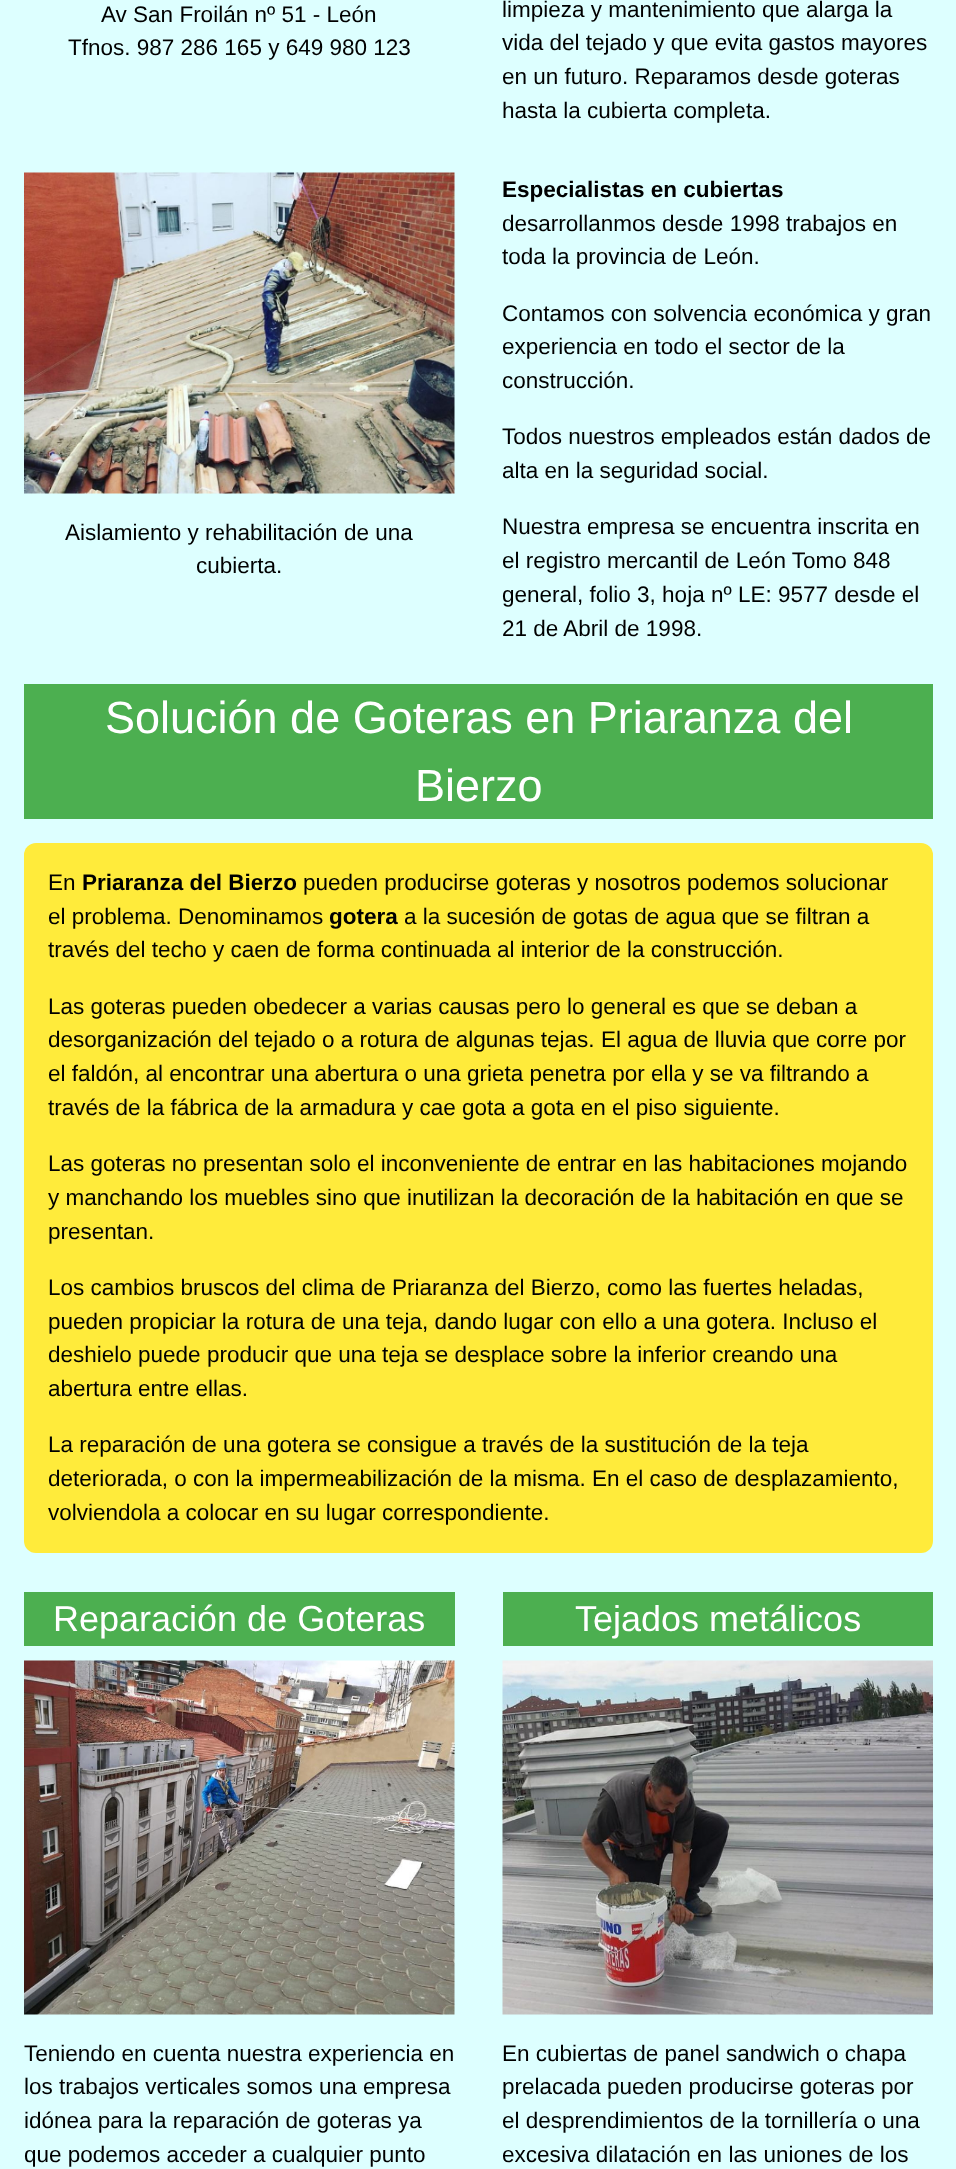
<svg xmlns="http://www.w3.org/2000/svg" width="956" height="2169">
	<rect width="100%" height="100%" fill="#DDFFFF" />
	<g font-family="Liberation Sans" font-size="22.5" fill="#000000">
		<text x="101" y="22">Av San Froilán nº 51 - León</text>
		<text x="68" y="55">Tfnos. 987 286 165 y 649 980 123</text>
		<text x="502" y="17">limpieza y mantenimiento que alarga la</text>
		<text x="502" y="50">vida del tejado y que evita gastos mayores</text>
		<text x="502" y="84">en un futuro. Reparamos desde goteras</text>
		<text x="502" y="118">hasta la cubierta completa.</text>
	</g>
	<image x="24" y="172" width="431" height="322" href="assets/img1.png" />
	<g font-family="Liberation Sans" font-size="22.5" fill="#000000">
		<text x="65" y="540">Aislamiento y rehabilitación de una</text>
		<text x="196" y="573">cubierta.</text>
	</g>
	<text x="502" y="197" font-family="Liberation Sans" font-size="22.5" font-weight="700" fill="#000000">Especialistas en cubiertas</text>
	<g font-family="Liberation Sans" font-size="22.5" fill="#000000">
		<text x="502" y="231">desarrollanmos desde 1998 trabajos en</text>
		<text x="502" y="264">toda la provincia de León.</text>
		<text x="502" y="321">Contamos con solvencia económica y gran</text>
		<text x="502" y="354">experiencia en todo el sector de la</text>
		<text x="502" y="388">construcción.</text>
		<text x="502" y="444">Todos nuestros empleados están dados de</text>
		<text x="502" y="478">alta en la seguridad social.</text>
		<text x="502" y="534">Nuestra empresa se encuentra inscrita en</text>
		<text x="502" y="568">el registro mercantil de León Tomo 848</text>
		<text x="502" y="602">general, folio 3, hoja nº LE: 9577 desde el</text>
		<text x="502" y="636">21 de Abril de 1998.</text>
	</g>
	<rect x="24" y="684" width="909" height="135" fill="#4CAF50" />
	<g font-family="Liberation Sans" font-size="45" fill="#FFFFFF">
		<text x="105" y="733">Solución de Goteras en Priaranza del</text>
		<text x="415" y="801">Bierzo</text>
	</g>
	<rect x="24" y="843" width="909" height="710" rx="12" fill="#FFEB3B" />
	<text x="48" y="890" font-family="Liberation Sans" font-size="22.5" fill="#000000">En</text>
	<text x="82" y="890" font-family="Liberation Sans" font-size="22.5" font-weight="700" fill="#000000">Priaranza del Bierzo</text>
	<g font-family="Liberation Sans" font-size="22.5" fill="#000000">
		<text x="303" y="890">pueden producirse goteras y nosotros podemos solucionar</text>
		<text x="48" y="924">el problema. Denominamos</text>
	</g>
	<text x="329" y="924" font-family="Liberation Sans" font-size="22.5" font-weight="700" fill="#000000">gotera</text>
	<g font-family="Liberation Sans" font-size="22.5" fill="#000000">
		<text x="404" y="924">a la sucesión de gotas de agua que se filtran a</text>
		<text x="48" y="957">través del techo y caen de forma continuada al interior de la construcción.</text>
		<text x="48" y="1014">Las goteras pueden obedecer a varias causas pero lo general es que se deban a</text>
		<text x="48" y="1047">desorganización del tejado o a rotura de algunas tejas. El agua de lluvia que corre por</text>
		<text x="48" y="1081">el faldón, al encontrar una abertura o una grieta penetra por ella y se va filtrando a</text>
		<text x="48" y="1115">través de la fábrica de la armadura y cae gota a gota en el piso siguiente.</text>
		<text x="48" y="1171">Las goteras no presentan solo el inconveniente de entrar en las habitaciones mojando</text>
		<text x="48" y="1205">y manchando los muebles sino que inutilizan la decoración de la habitación en que se</text>
		<text x="48" y="1239">presentan.</text>
		<text x="48" y="1295">Los cambios bruscos del clima de Priaranza del Bierzo, como las fuertes heladas,</text>
		<text x="48" y="1329">pueden propiciar la rotura de una teja, dando lugar con ello a una gotera. Incluso el</text>
		<text x="48" y="1362">deshielo puede producir que una teja se desplace sobre la inferior creando una</text>
		<text x="48" y="1396">abertura entre ellas.</text>
		<text x="48" y="1452">La reparación de una gotera se consigue a través de la sustitución de la teja</text>
		<text x="48" y="1486">deteriorada, o con la impermeabilización de la misma. En el caso de desplazamiento,</text>
		<text x="48" y="1520">volviendola a colocar en su lugar correspondiente.</text>
	</g>
	<rect x="24" y="1592" width="431" height="54" fill="#4CAF50" />
	<text x="53" y="1631" font-family="Liberation Sans" font-size="36" fill="#FFFFFF">Reparación de Goteras</text>
	<image x="24" y="1660" width="431" height="355" href="assets/img2.png" />
	<g font-family="Liberation Sans" font-size="22.5" fill="#000000">
		<text x="24" y="2061">Teniendo en cuenta nuestra experiencia en</text>
		<text x="24" y="2094">los trabajos verticales somos una empresa</text>
		<text x="24" y="2128">idónea para la reparación de goteras ya</text>
		<text x="24" y="2162">que podemos acceder a cualquier punto</text>
	</g>
	<rect x="503" y="1592" width="430" height="54" fill="#4CAF50" />
	<text x="575" y="1631" font-family="Liberation Sans" font-size="36" fill="#FFFFFF">Tejados metálicos</text>
	<image x="502" y="1660" width="431" height="355" href="assets/img3.png" />
	<g font-family="Liberation Sans" font-size="22.5" fill="#000000">
		<text x="502" y="2061">En cubiertas de panel sandwich o chapa</text>
		<text x="502" y="2094">prelacada pueden producirse goteras por</text>
		<text x="502" y="2128">el desprendimientos de la tornillería o una</text>
		<text x="502" y="2162">excesiva dilatación en las uniones de los</text>
	</g>
</svg>
